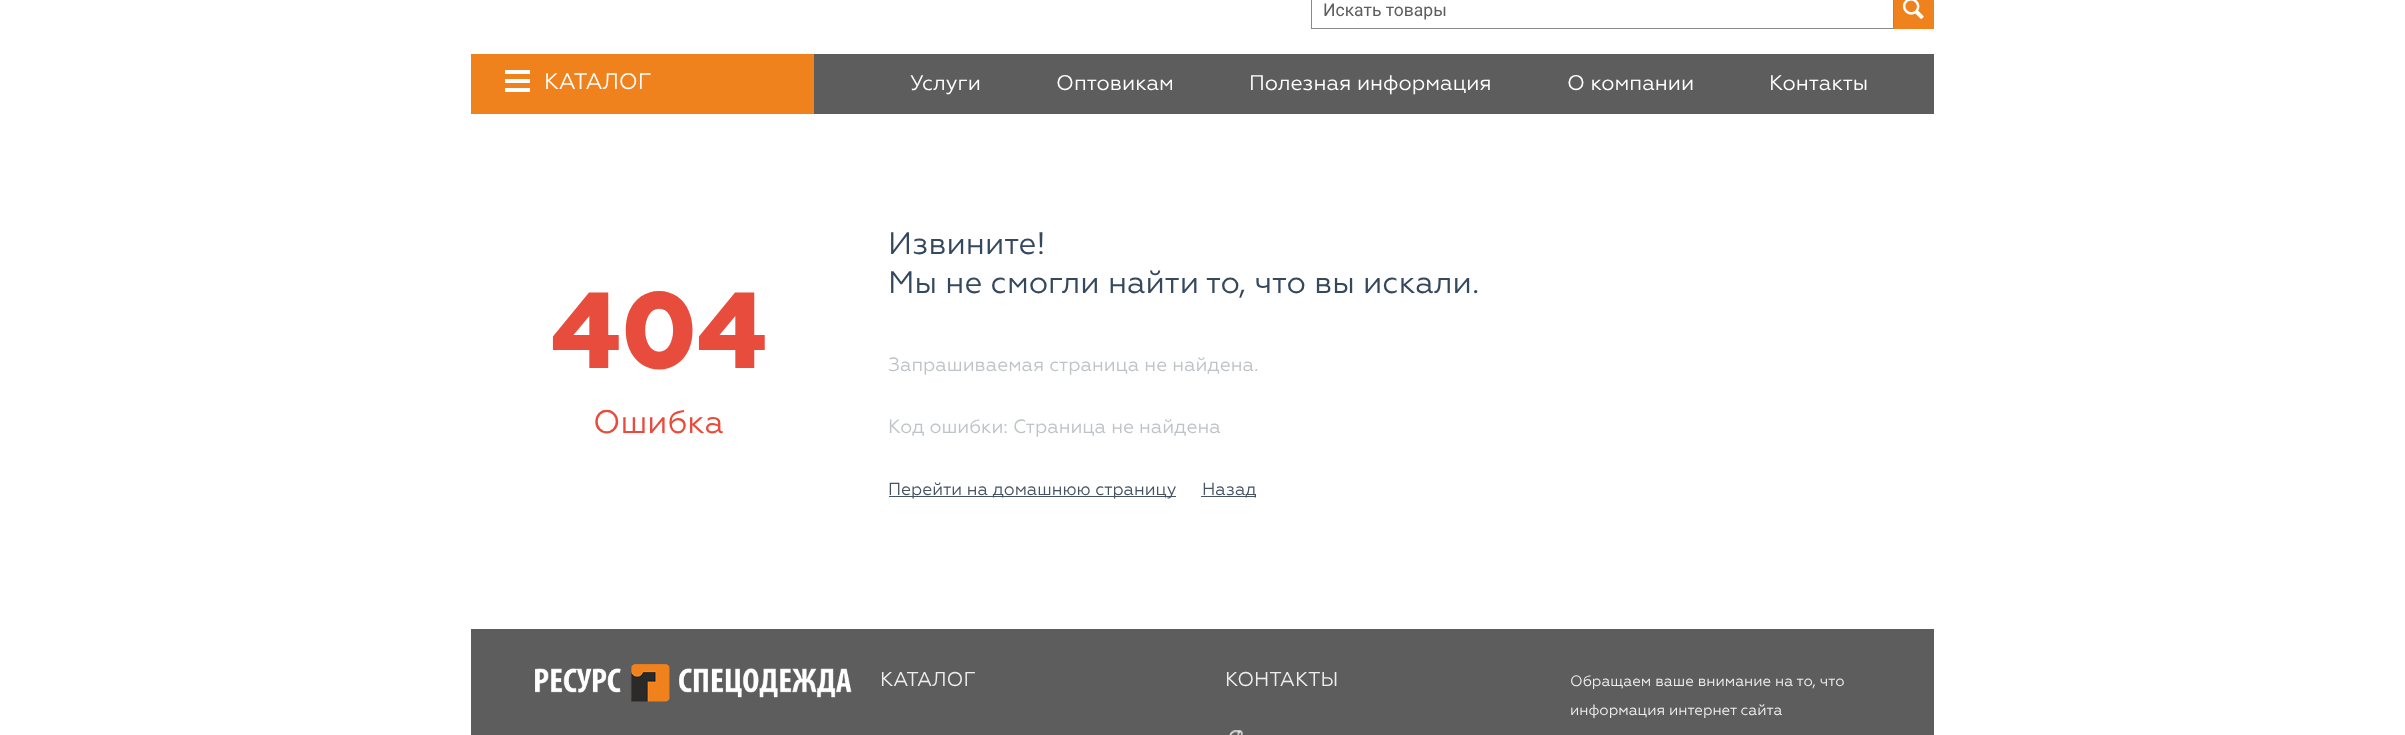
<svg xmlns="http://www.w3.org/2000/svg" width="2405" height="735">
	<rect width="100%" height="100%" fill="#FFFFFF" />
	<rect x="1311.5" y="-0.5" width="582" height="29" fill="none" stroke="#898989" />
	<text x="1323" y="16" font-family="Roboto" font-size="17.5" fill="#5D5D5D">Искать товары</text>
	<rect x="1894" y="0" width="40" height="29" fill="#F0821E" />
	<image x="1902" y="0" width="22" height="19" href="assets/img1.png" />
	<rect x="814" y="54" width="1120" height="60" fill="#5D5D5D" />
	<rect x="471" y="54" width="343" height="60" fill="#F0821E" />
	<rect x="505" y="70" width="25" height="4" fill="#FFFFFF" />
	<rect x="505" y="79" width="25" height="4" fill="#FFFFFF" />
	<rect x="505" y="88" width="25" height="4" fill="#FFFFFF" />
	<text x="544" y="89" font-family="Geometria" font-size="22.5" fill="#FFFFFF">КАТАЛОГ</text>
	<g font-family="Geometria" font-size="21.25" fill="#FFFFFF">
		<text x="910" y="90">Услуги</text>
		<text x="1056" y="90">Оптовикам</text>
		<text x="1249" y="90">Полезная информация</text>
		<text x="1567" y="90">О компании</text>
		<text x="1769" y="90">Контакты</text>
	</g>
	<text x="551" y="368" font-family="Geometria" font-size="108" font-weight="800" fill="#E74C3C">404</text>
	<text x="593" y="433" font-family="Geometria" font-size="32.5" fill="#E74C3C">Ошибка</text>
	<g font-family="Geometria" font-size="31.25" fill="#34495E">
		<text x="888" y="254">Извините!</text>
		<text x="888" y="293">Мы не смогли найти то, что вы искали.</text>
	</g>
	<g font-family="Geometria" font-size="19.25" fill="#BDC3C7">
		<text x="888" y="371">Запрашиваемая страница не найдена.</text>
		<text x="888" y="433">Код ошибки: Страница не найдена</text>
	</g>
	<rect x="889" y="496" width="287" height="1" fill="#465363" />
	<text x="888" y="495" font-family="Geometria" font-size="17.5" fill="#465363">Перейти на домашнюю страницу</text>
	<rect x="1201" y="496" width="55" height="1" fill="#465363" />
	<text x="1202" y="495" font-family="Geometria" font-size="17.5" fill="#465363">Назад</text>
	<rect x="471" y="629" width="1463" height="106" fill="#5D5D5D" />
	<image x="535" y="664" width="317" height="38" href="assets/img2.png" />
	<g font-family="Geometria" font-size="20" fill="#EEEEEE">
		<text x="880" y="686">КАТАЛОГ</text>
		<text x="1225" y="686">КОНТАКТЫ</text>
	</g>
	<image x="1228" y="730" width="15" height="5" href="assets/img3.png" />
	<g font-family="Geometria" font-size="15" fill="#EEEEEE">
		<text x="1570" y="686">Обращаем ваше внимание на то, что</text>
		<text x="1570" y="715">информация интернет сайта</text>
	</g>
</svg>
